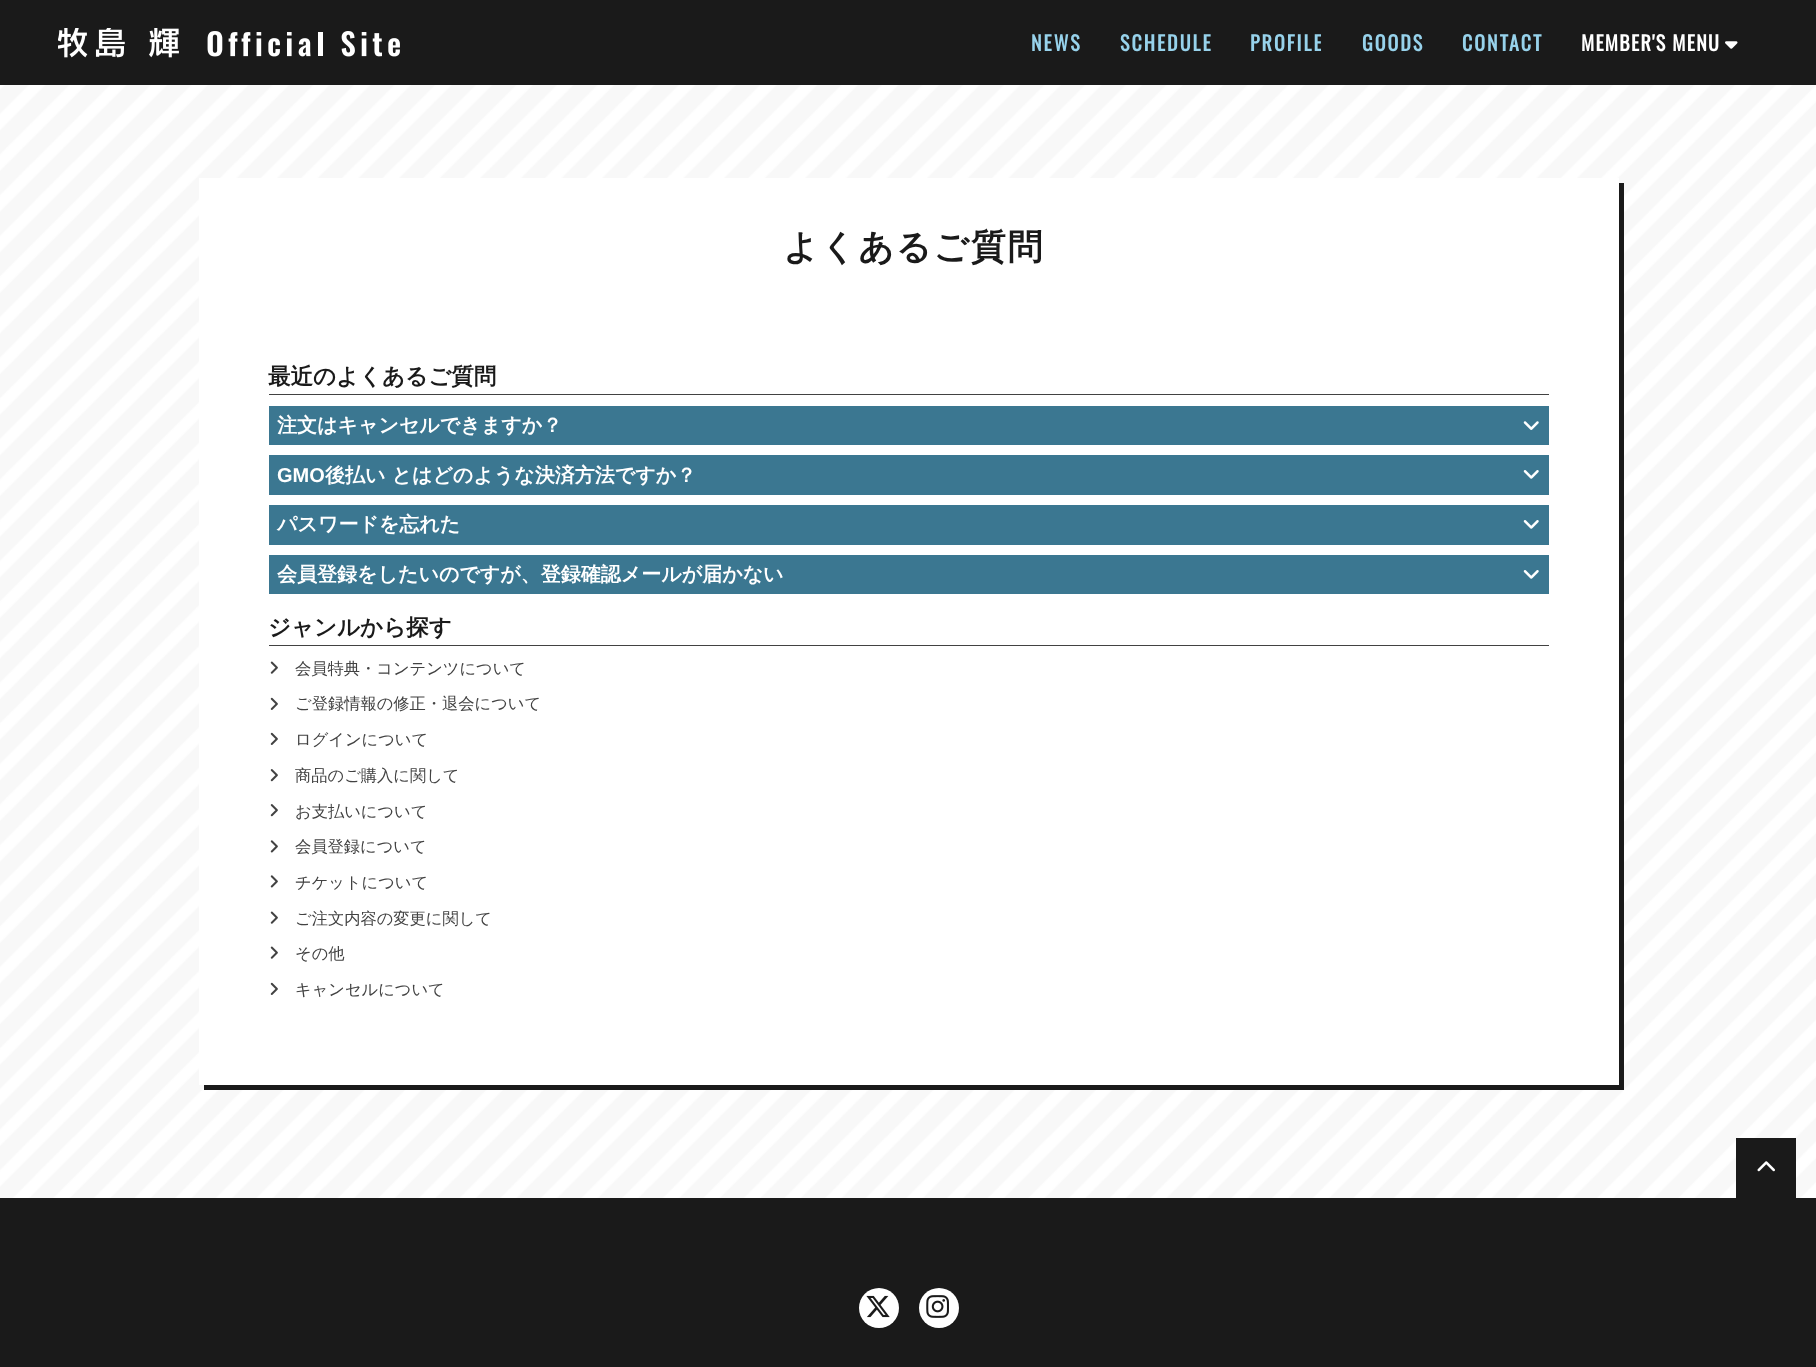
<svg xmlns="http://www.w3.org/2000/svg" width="1816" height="1367">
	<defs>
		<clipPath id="clip1"><rect x="1250" y="29" width="71" height="27" /></clipPath>
	</defs>
	<rect width="100%" height="100%" fill="#FFFFFF" />
	<image x="0" y="85" width="1816" height="1113" href="assets/img1.png" />
	<rect x="0" y="0" width="1816" height="85" fill="#1A1A1A" />
	<image x="58" y="28" width="342" height="30" href="assets/img2.png" />
	<g font-family="Oswald" font-size="20" font-weight="700" letter-spacing="2" fill="#97D2EB">
		<text x="1031" y="51">NEWS</text>
		<text x="1120" y="51">SCHEDULE</text>
	</g>
	<g clip-path="url(#clip1)">
		<text x="1250" y="51" font-family="Oswald" font-size="20" font-weight="700" letter-spacing="2" fill="#97D2EB">PROFILE</text>
	</g>
	<g font-family="Oswald" font-size="20" font-weight="700" letter-spacing="2" fill="#97D2EB">
		<text x="1362" y="51">GOODS</text>
		<text x="1462" y="51">CONTACT</text>
	</g>
	<text x="1581" y="51" font-family="Oswald" font-size="20" font-weight="700" letter-spacing="1.25" fill="#FFFFFF">MEMBER'S MENU</text>
	<image x="1725" y="41" width="13" height="8" href="assets/img3.png" />
	<rect x="199" y="178" width="1420" height="907" fill="#FFFFFF" />
	<text x="783" y="259" font-family="WenQuanYi Zen Hei" font-size="35" font-weight="700" letter-spacing="1.75" fill="#1A1A1A">よくあるご質問</text>
	<rect x="1619" y="183" width="5" height="907" fill="#1A1A1A" />
	<rect x="269" y="394" width="1280" height="1" fill="#424242" />
	<text x="268" y="384" font-family="WenQuanYi Zen Hei" font-size="22.5" font-weight="700" fill="#1A1A1A">最近のよくあるご質問</text>
	<rect x="269" y="406" width="1280" height="39" fill="#3B7791" />
	<text x="277" y="432" font-family="WenQuanYi Zen Hei" font-size="20" font-weight="700" fill="#FFFFFF">注文はキャンセルできますか？</text>
	<image x="1523" y="421" width="16" height="9" href="assets/img4.png" />
	<rect x="269" y="455" width="1280" height="40" fill="#3B7791" />
	<text x="277" y="482" font-family="Liberation Sans" font-size="20" font-weight="700" fill="#FFFFFF">GMO</text>
	<text x="325" y="482" font-family="WenQuanYi Zen Hei" font-size="20" font-weight="700" fill="#FFFFFF">後払い とはどのような決済方法ですか？</text>
	<image x="1523" y="470" width="16" height="9" href="assets/img5.png" />
	<rect x="269" y="505" width="1280" height="40" fill="#3B7791" />
	<text x="277" y="531" font-family="WenQuanYi Zen Hei" font-size="20" font-weight="700" fill="#FFFFFF">パスワードを忘れた</text>
	<image x="1523" y="520" width="16" height="9" href="assets/img5.png" />
	<rect x="269" y="555" width="1280" height="39" fill="#3B7791" />
	<text x="277" y="581" font-family="WenQuanYi Zen Hei" font-size="20" font-weight="700" fill="#FFFFFF">会員登録をしたいのですが、登録確認メールが届かない</text>
	<image x="1523" y="570" width="16" height="9" href="assets/img5.png" />
	<rect x="269" y="645" width="1280" height="1" fill="#424242" />
	<text x="268" y="635" font-family="WenQuanYi Zen Hei" font-size="22.5" font-weight="700" fill="#1A1A1A">ジャンルから探す</text>
	<image x="270" y="661" width="8" height="13" href="assets/img6.png" />
	<text x="295" y="674" font-family="WenQuanYi Zen Hei" font-size="16.25" font-weight="500" fill="#424242">会員特典・コンテンツについて</text>
	<image x="270" y="697" width="8" height="13" href="assets/img7.png" />
	<text x="295" y="709" font-family="WenQuanYi Zen Hei" font-size="16.25" font-weight="500" fill="#424242">ご登録情報の修正・退会について</text>
	<image x="270" y="732" width="8" height="13" href="assets/img7.png" />
	<text x="295" y="745" font-family="WenQuanYi Zen Hei" font-size="16.25" font-weight="500" fill="#424242">ログインについて</text>
	<image x="270" y="769" width="8" height="13" href="assets/img8.png" />
	<text x="295" y="781" font-family="WenQuanYi Zen Hei" font-size="16.25" font-weight="500" fill="#424242">商品のご購入に関して</text>
	<image x="270" y="804" width="8" height="13" href="assets/img8.png" />
	<text x="295" y="817" font-family="WenQuanYi Zen Hei" font-size="16.25" font-weight="500" fill="#424242">お支払いについて</text>
	<image x="270" y="840" width="8" height="13" href="assets/img9.png" />
	<text x="295" y="852" font-family="WenQuanYi Zen Hei" font-size="16.25" font-weight="500" fill="#424242">会員登録について</text>
	<image x="270" y="875" width="8" height="13" href="assets/img9.png" />
	<text x="295" y="888" font-family="WenQuanYi Zen Hei" font-size="16.25" font-weight="500" fill="#424242">チケットについて</text>
	<image x="270" y="911" width="8" height="13" href="assets/img6.png" />
	<text x="295" y="924" font-family="WenQuanYi Zen Hei" font-size="16.25" font-weight="500" fill="#424242">ご注文内容の変更に関して</text>
	<image x="270" y="946" width="8" height="13" href="assets/img6.png" />
	<text x="295" y="959" font-family="WenQuanYi Zen Hei" font-size="16.25" font-weight="500" fill="#424242">その他</text>
	<image x="270" y="982" width="8" height="13" href="assets/img7.png" />
	<text x="295" y="995" font-family="WenQuanYi Zen Hei" font-size="16.25" font-weight="500" fill="#424242">キャンセルについて</text>
	<rect x="204" y="1085" width="1420" height="5" fill="#1A1A1A" />
	<rect x="0" y="1198" width="1816" height="169" fill="#1A1A1A" />
	<rect x="1736" y="1138" width="60" height="60" fill="#1A1A1A" />
	<image x="1757" y="1161" width="18" height="11" href="assets/img10.png" />
	<circle cx="879" cy="1308" r="20" fill="#FFFFFF" />
	<image x="866" y="1295" width="24" height="23" href="assets/img11.png" />
	<circle cx="939" cy="1308" r="20" fill="#FFFFFF" />
	<image x="926" y="1295" width="23" height="23" href="assets/img12.png" />
</svg>
